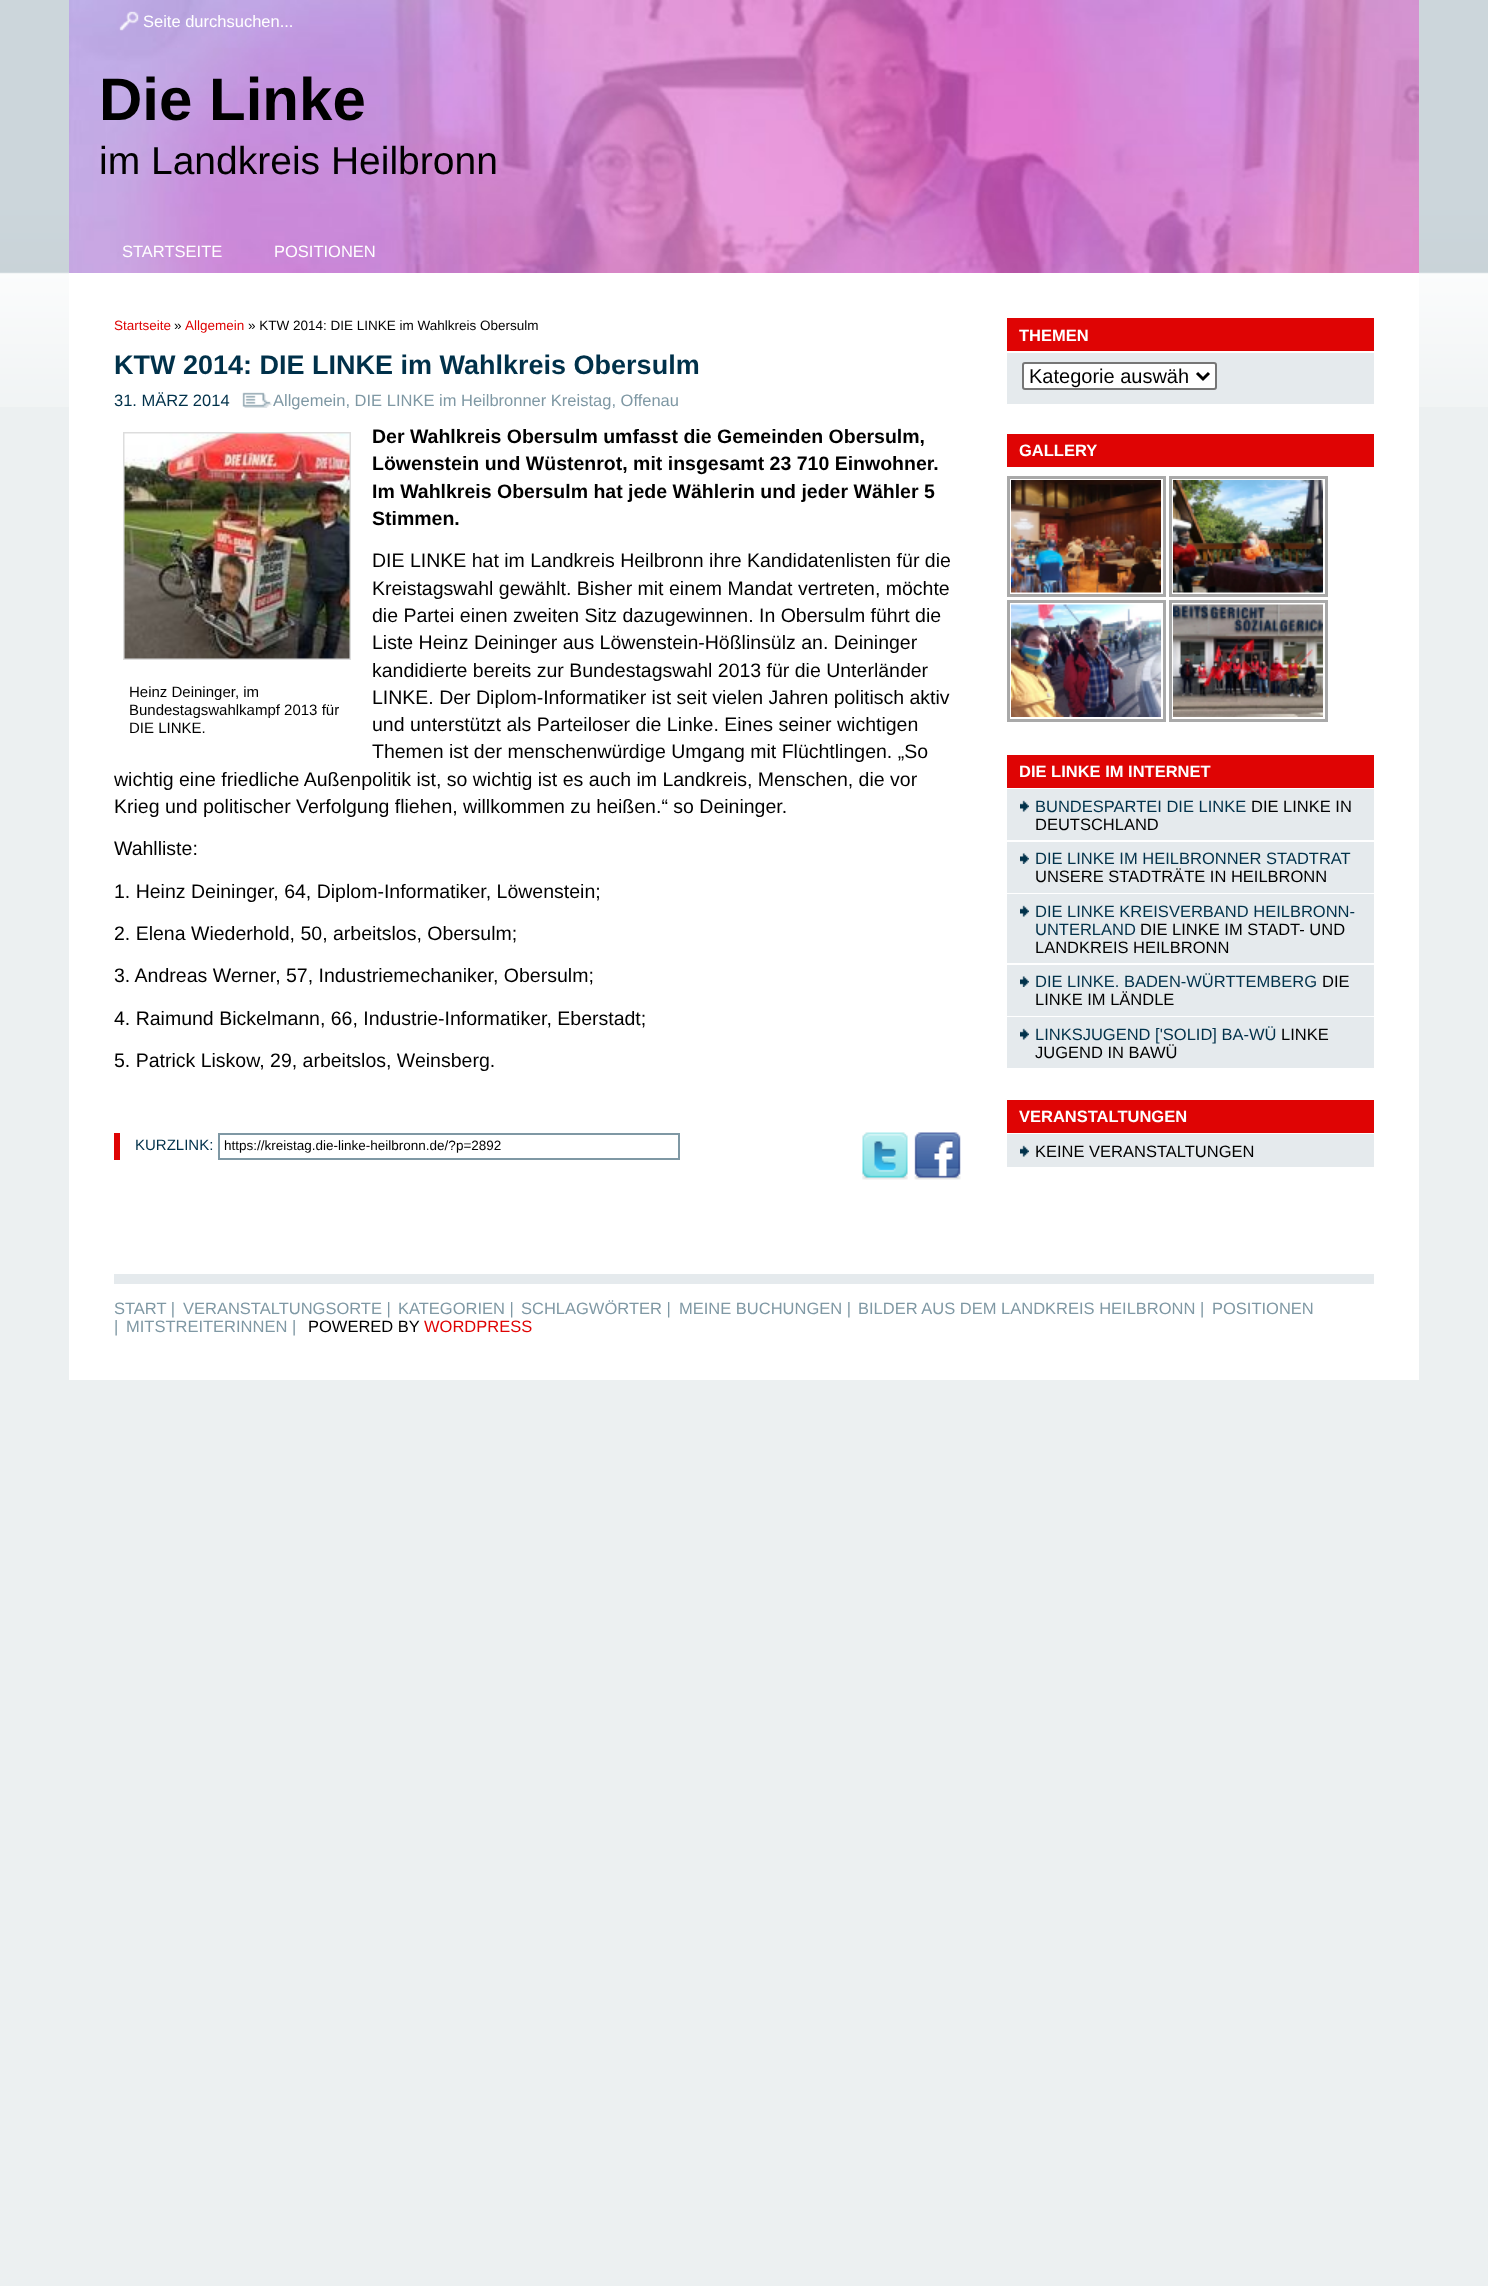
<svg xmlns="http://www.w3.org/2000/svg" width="1488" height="2286">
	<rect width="100%" height="100%" fill="#ECF0F1" />
	<image x="0" y="0" width="1488" height="407" href="assets/img1.png" />
	<rect x="69" y="273" width="1350" height="1107" fill="#FFFFFF" />
	<image x="69" y="0" width="1350" height="273" href="assets/img2.png" />
	<image x="119" y="11" width="20" height="20" href="assets/img3.png" />
	<text x="143" y="27" font-family="Liberation Sans" font-size="16.5" fill="#FFFFFF">Seite durchsuchen...</text>
	<text x="99" y="120" font-family="Liberation Sans" font-size="60" font-weight="700" fill="#000000">Die Linke</text>
	<text x="99" y="174" font-family="Liberation Sans" font-size="39" fill="#000000">im Landkreis Heilbronn</text>
	<g font-family="Liberation Sans" font-size="16.5" fill="#FFFFFF">
		<text x="122" y="257">STARTSEITE</text>
		<text x="274" y="257">POSITIONEN</text>
	</g>
	<text x="114" y="330" font-family="Liberation Sans" font-size="13.5" fill="#DF0404">Startseite</text>
	<text x="174" y="330" font-family="Liberation Sans" font-size="13.5" fill="#000000">»</text>
	<text x="185" y="330" font-family="Liberation Sans" font-size="13.5" fill="#DF0404">Allgemein</text>
	<text x="248" y="330" font-family="Liberation Sans" font-size="13.5" fill="#000000">» KTW 2014: DIE LINKE im Wahlkreis Obersulm</text>
	<text x="114" y="374" font-family="Liberation Sans" font-size="27" font-weight="700" fill="#00314A">KTW 2014: DIE LINKE im Wahlkreis Obersulm</text>
	<text x="114" y="406" font-family="Liberation Sans" font-size="16.5" fill="#00314A">31. MÄRZ 2014</text>
	<image x="242" y="392" width="30" height="16" href="assets/img4.png" />
	<text x="273" y="406" font-family="Liberation Sans" font-size="16.5" fill="#7F98A4">Allgemein, DIE LINKE im Heilbronner Kreistag, Offenau</text>
	<g font-family="Liberation Sans" font-size="19.5" font-weight="700" fill="#000000">
		<text x="372" y="443">Der Wahlkreis Obersulm umfasst die Gemeinden Obersulm,</text>
		<text x="372" y="470">Löwenstein und Wüstenrot, mit insgesamt 23 710 Einwohner.</text>
		<text x="372" y="498">Im Wahlkreis Obersulm hat jede Wählerin und jeder Wähler 5</text>
		<text x="372" y="525">Stimmen.</text>
	</g>
	<g font-family="Liberation Sans" font-size="19.5" fill="#000000">
		<text x="372" y="567">DIE LINKE hat im Landkreis Heilbronn ihre Kandidatenlisten für die</text>
		<text x="372" y="595">Kreistagswahl gewählt. Bisher mit einem Mandat vertreten, möchte</text>
		<text x="372" y="622">die Partei einen zweiten Sitz dazugewinnen. In Obersulm führt die</text>
		<text x="372" y="649">Liste Heinz Deininger aus Löwenstein-Hößlinsülz an. Deininger</text>
		<text x="372" y="677">kandidierte bereits zur Bundestagswahl 2013 für die Unterländer</text>
		<text x="372" y="704">LINKE. Der Diplom-Informatiker ist seit vielen Jahren politisch aktiv</text>
		<text x="372" y="731">und unterstützt als Parteiloser die Linke. Eines seiner wichtigen</text>
		<text x="372" y="758">Themen ist der menschenwürdige Umgang mit Flüchtlingen. „So</text>
		<text x="114" y="786">wichtig eine friedliche Außenpolitik ist, so wichtig ist es auch im Landkreis, Menschen, die vor</text>
		<text x="114" y="813">Krieg und politischer Verfolgung fliehen, willkommen zu heißen.“ so Deininger.</text>
	</g>
	<rect x="124" y="433" width="226" height="226" fill="none" stroke="#DDDDDD" stroke-width="2" />
	<image x="124" y="433" width="226" height="226" href="assets/img5.png" />
	<g font-family="Liberation Sans" font-size="15" fill="#000000">
		<text x="129" y="697">Heinz Deininger, im</text>
		<text x="129" y="715">Bundestagswahlkampf 2013 für</text>
		<text x="129" y="733">DIE LINKE.</text>
	</g>
	<g font-family="Liberation Sans" font-size="19.5" fill="#000000">
		<text x="114" y="855">Wahlliste:</text>
		<text x="114" y="898">1. Heinz Deininger, 64, Diplom-Informatiker, Löwenstein;</text>
		<text x="114" y="940">2. Elena Wiederhold, 50, arbeitslos, Obersulm;</text>
		<text x="114" y="982">3. Andreas Werner, 57, Industriemechaniker, Obersulm;</text>
		<text x="114" y="1025">4. Raimund Bickelmann, 66, Industrie-Informatiker, Eberstadt;</text>
		<text x="114" y="1067">5. Patrick Liskow, 29, arbeitslos, Weinsberg.</text>
	</g>
	<rect x="114" y="1133" width="6" height="27" fill="#DF0404" />
	<text x="135" y="1150" font-family="Liberation Sans" font-size="15" fill="#00314A">KURZLINK:</text>
	<rect x="219" y="1134" width="460" height="25" fill="none" stroke="#7F98A4" stroke-width="2" />
	<text x="224" y="1150" font-family="Liberation Sans" font-size="13.5" fill="#000000">https://kreistag.die-linke-heilbronn.de/?p=2892</text>
	<image x="862" y="1132" width="46" height="48" href="assets/img6.png" />
	<image x="914" y="1132" width="47" height="48" href="assets/img7.png" />
	<rect x="1007" y="318" width="367" height="33" fill="#DF0404" />
	<text x="1019" y="341" font-family="Liberation Sans" font-size="16.5" font-weight="700" fill="#FFFFFF">THEMEN</text>
	<rect x="1007" y="353" width="367" height="51" fill="#E5EAED" />
	<rect x="1023" y="363" width="193" height="26" rx="2" fill="#FFFFFF" stroke="#767676" stroke-width="2" />
	<path d="M1197 373L1203 379L1209 373" fill="none" stroke="#000000" stroke-width="3" />
	<text x="1029" y="383" font-family="Liberation Sans" font-size="20" fill="#000000">Kategorie auswäh</text>
	<rect x="1007" y="434" width="367" height="33" fill="#DF0404" />
	<text x="1019" y="456" font-family="Liberation Sans" font-size="16.5" font-weight="700" fill="#FFFFFF">GALLERY</text>
	<rect x="1008.5" y="477.5" width="156" height="118" fill="none" stroke="#A9A9A9" stroke-width="3" />
	<image x="1011" y="480" width="150" height="113" href="assets/img8.png" />
	<rect x="1170.5" y="477.5" width="156" height="118" fill="none" stroke="#A9A9A9" stroke-width="3" />
	<image x="1173" y="480" width="150" height="113" href="assets/img9.png" />
	<rect x="1008.5" y="601.5" width="156" height="119" fill="none" stroke="#A9A9A9" stroke-width="3" />
	<image x="1011" y="604" width="150" height="113" href="assets/img10.png" />
	<rect x="1170.5" y="601.5" width="156" height="119" fill="none" stroke="#A9A9A9" stroke-width="3" />
	<image x="1173" y="604" width="150" height="113" href="assets/img11.png" />
	<rect x="1007" y="755" width="367" height="33" fill="#DF0404" />
	<text x="1019" y="777" font-family="Liberation Sans" font-size="16.5" font-weight="700" fill="#FFFFFF">DIE LINKE IM INTERNET</text>
	<rect x="1007" y="789" width="367" height="51" fill="#E5EAED" />
	<image x="1020" y="800" width="9" height="12" href="assets/img12.png" />
	<text x="1035" y="812" font-family="Liberation Sans" font-size="16.5" fill="#00314A">BUNDESPARTEI DIE LINKE</text>
	<g font-family="Liberation Sans" font-size="16.5" fill="#000000">
		<text x="1251" y="812">DIE LINKE IN</text>
		<text x="1035" y="830">DEUTSCHLAND</text>
	</g>
	<rect x="1007" y="842" width="367" height="51" fill="#E5EAED" />
	<image x="1020" y="853" width="9" height="11" href="assets/img13.png" />
	<text x="1035" y="864" font-family="Liberation Sans" font-size="16.5" fill="#00314A">DIE LINKE IM HEILBRONNER STADTRAT</text>
	<text x="1035" y="882" font-family="Liberation Sans" font-size="16.5" fill="#000000">UNSERE STADTRÄTE IN HEILBRONN</text>
	<rect x="1007" y="894" width="367" height="69" fill="#E5EAED" />
	<image x="1020" y="905" width="9" height="12" href="assets/img12.png" />
	<g font-family="Liberation Sans" font-size="16.5" fill="#00314A">
		<text x="1035" y="917">DIE LINKE KREISVERBAND HEILBRONN-</text>
		<text x="1035" y="935">UNTERLAND</text>
	</g>
	<g font-family="Liberation Sans" font-size="16.5" fill="#000000">
		<text x="1140" y="935">DIE LINKE IM STADT- UND</text>
		<text x="1035" y="953">LANDKREIS HEILBRONN</text>
	</g>
	<rect x="1007" y="965" width="367" height="51" fill="#E5EAED" />
	<image x="1020" y="976" width="9" height="11" href="assets/img13.png" />
	<text x="1035" y="987" font-family="Liberation Sans" font-size="16.5" fill="#00314A">DIE LINKE. BADEN-WÜRTTEMBERG</text>
	<g font-family="Liberation Sans" font-size="16.5" fill="#000000">
		<text x="1322" y="987">DIE</text>
		<text x="1035" y="1005">LINKE IM LÄNDLE</text>
	</g>
	<rect x="1007" y="1017" width="367" height="51" fill="#E5EAED" />
	<image x="1020" y="1028" width="9" height="12" href="assets/img12.png" />
	<text x="1035" y="1040" font-family="Liberation Sans" font-size="16.5" fill="#00314A">LINKSJUGEND ['SOLID] BA-WÜ</text>
	<g font-family="Liberation Sans" font-size="16.5" fill="#000000">
		<text x="1281" y="1040">LINKE</text>
		<text x="1035" y="1058">JUGEND IN BAWÜ</text>
	</g>
	<rect x="1007" y="1100" width="367" height="33" fill="#DF0404" />
	<text x="1019" y="1122" font-family="Liberation Sans" font-size="16.5" font-weight="700" fill="#FFFFFF">VERANSTALTUNGEN</text>
	<rect x="1007" y="1134" width="367" height="33" fill="#E5EAED" />
	<image x="1020" y="1145" width="9" height="12" href="assets/img12.png" />
	<text x="1035" y="1157" font-family="Liberation Sans" font-size="16.5" fill="#000000">KEINE VERANSTALTUNGEN</text>
	<rect x="114" y="1274" width="1260" height="10" fill="#E5EAED" />
	<g font-family="Liberation Sans" font-size="16.5" fill="#7F98A4">
		<text x="114" y="1314">START |</text>
		<text x="183" y="1314">VERANSTALTUNGSORTE |</text>
		<text x="398" y="1314">KATEGORIEN |</text>
		<text x="521" y="1314">SCHLAGWÖRTER |</text>
		<text x="679" y="1314">MEINE BUCHUNGEN |</text>
		<text x="858" y="1314">BILDER AUS DEM LANDKREIS HEILBRONN |</text>
		<text x="1212" y="1314">POSITIONEN</text>
		<text x="114" y="1332">|</text>
		<text x="126" y="1332">MITSTREITERINNEN |</text>
	</g>
	<text x="308" y="1332" font-family="Liberation Sans" font-size="16.5" fill="#000000">POWERED BY</text>
	<text x="424" y="1332" font-family="Liberation Sans" font-size="16.5" fill="#DF0404">WORDPRESS</text>
</svg>
